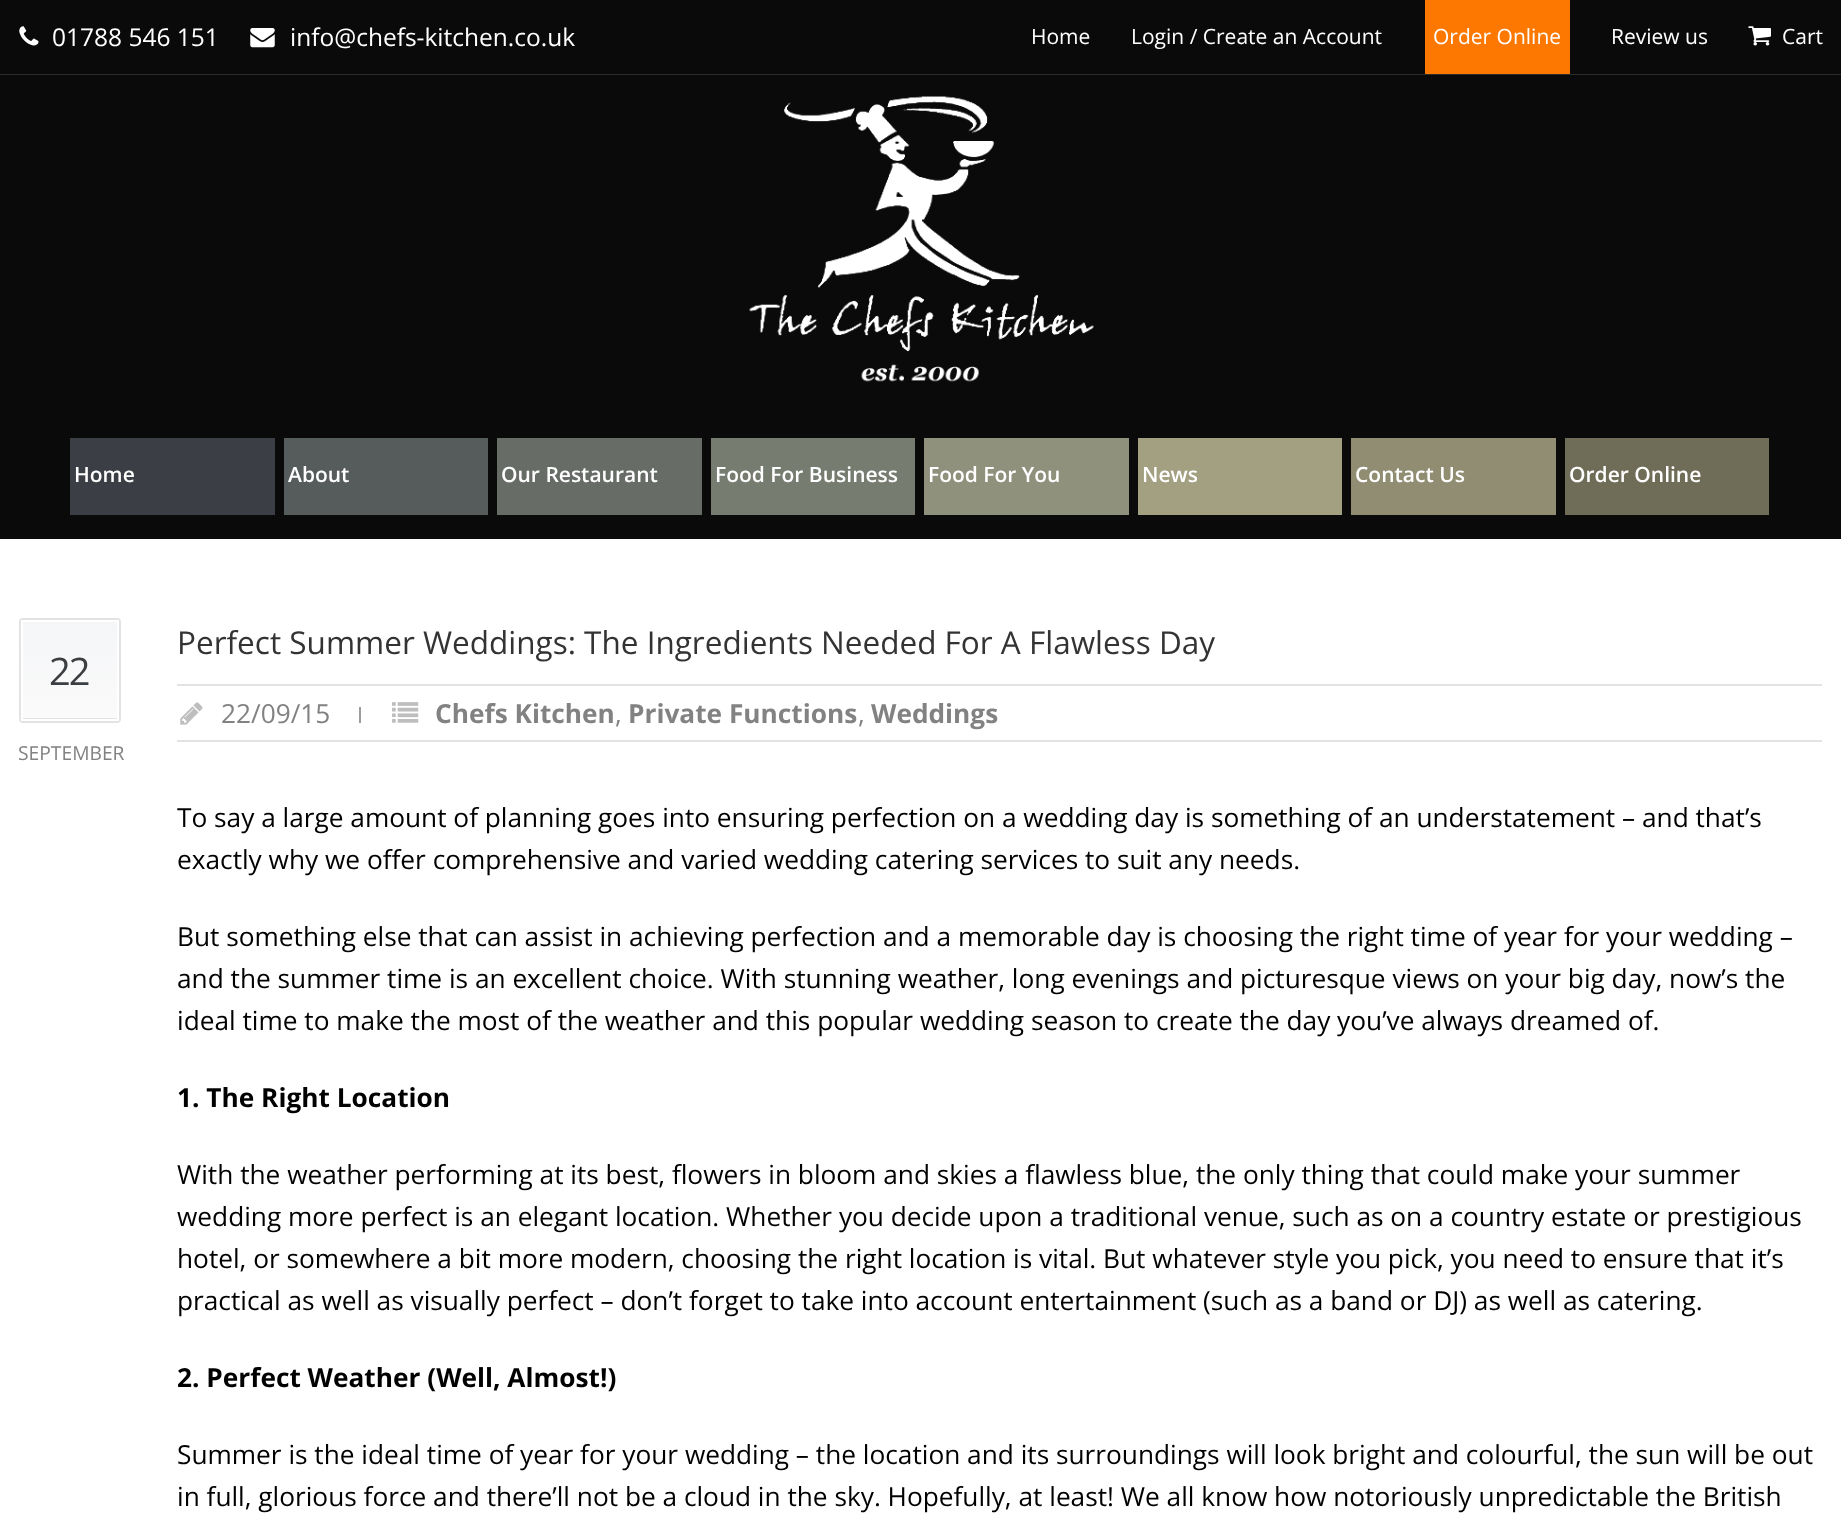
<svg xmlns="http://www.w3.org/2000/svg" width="1841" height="1524">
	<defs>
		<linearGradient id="g1" gradientUnits="userSpaceOnUse" x1="70" y1="620" x2="70" y2="718"><stop offset="0" stop-color="#F5F6F8" /><stop offset="1" stop-color="#FAFAFA" /></linearGradient>
	</defs>
	<rect width="100%" height="100%" fill="#0A0A0A" />
	<rect x="0" y="74" width="1841" height="1" fill="#2B2B2B" />
	<image x="19" y="26" width="20" height="20" href="assets/img1.png" />
	<text x="52" y="46" font-family="Open Sans" font-size="24.5" fill="#FFFFFF">01788 546 151</text>
	<image x="250" y="28" width="25" height="20" href="assets/img2.png" />
	<text x="290" y="46" font-family="Open Sans" font-size="24.5" fill="#FFFFFF">info@chefs-kitchen.co.uk</text>
	<g font-family="Open Sans" font-size="21" fill="#FFFFFF">
		<text x="1031" y="44">Home</text>
		<text x="1131" y="44">Login / Create an Account</text>
	</g>
	<rect x="1425" y="0" width="145" height="74" fill="#FD7800" />
	<g font-family="Open Sans" font-size="21" fill="#FFFFFF">
		<text x="1433" y="44">Order Online</text>
		<text x="1611" y="44">Review us</text>
	</g>
	<image x="1748" y="26" width="23" height="20" href="assets/img3.png" />
	<text x="1782" y="44" font-family="Open Sans" font-size="21" fill="#FFFFFF">Cart</text>
	<image x="749" y="96" width="345" height="286" href="assets/img4.png" />
	<rect x="70" y="438" width="205" height="77" fill="#3B3E44" />
	<text x="74" y="482" font-family="Open Sans" font-size="21" font-weight="600" fill="#FFFFFF">Home</text>
	<rect x="284" y="438" width="204" height="77" fill="#565C5C" />
	<text x="288" y="482" font-family="Open Sans" font-size="21" font-weight="600" fill="#FFFFFF">About</text>
	<rect x="497" y="438" width="205" height="77" fill="#676C67" />
	<text x="501" y="482" font-family="Open Sans" font-size="21" font-weight="600" fill="#FFFFFF">Our Restaurant</text>
	<rect x="711" y="438" width="204" height="77" fill="#777C71" />
	<text x="715" y="482" font-family="Open Sans" font-size="21" font-weight="600" fill="#FFFFFF">Food For Business</text>
	<rect x="924" y="438" width="205" height="77" fill="#90917D" />
	<text x="928" y="482" font-family="Open Sans" font-size="21" font-weight="600" fill="#FFFFFF">Food For You</text>
	<rect x="1138" y="438" width="204" height="77" fill="#A39F81" />
	<text x="1142" y="482" font-family="Open Sans" font-size="21" font-weight="600" fill="#FFFFFF">News</text>
	<rect x="1351" y="438" width="205" height="77" fill="#908D73" />
	<text x="1355" y="482" font-family="Open Sans" font-size="21" font-weight="600" fill="#FFFFFF">Contact Us</text>
	<rect x="1565" y="438" width="204" height="77" fill="#6F6C57" />
	<text x="1569" y="482" font-family="Open Sans" font-size="21" font-weight="600" fill="#FFFFFF">Order Online</text>
	<rect x="0" y="539" width="1841" height="985" fill="#FFFFFF" />
	<rect x="19" y="620" width="102" height="98" fill="url(#g1)" />
	<rect x="20" y="619" width="100" height="103" rx="3" fill="none" stroke="#E3E3E3" stroke-width="2" />
	<rect x="21" y="718" width="98" height="3" fill="#E3E3E3" />
	<rect x="22" y="621" width="96" height="99" fill="none" stroke="#FFFFFF" stroke-width="2" />
	<text x="49" y="685" font-family="Open Sans" font-size="38" letter-spacing="-2" fill="#3B3F42">22</text>
	<text x="18" y="760" font-family="Open Sans" font-size="19.25" fill="#828282">SEPTEMBER</text>
	<text x="177" y="654" font-family="Open Sans" font-size="31.5" fill="#333333">Perfect Summer Weddings: The Ingredients Needed For A Flawless Day</text>
	<rect x="177" y="684" width="1645" height="2" fill="#E3E3E3" />
	<rect x="177" y="740" width="1645" height="2" fill="#E3E3E3" />
	<image x="180" y="702" width="23" height="23" href="assets/img5.png" />
	<text x="221" y="723" font-family="Open Sans" font-size="26.25" fill="#828282">22/09/15</text>
	<rect x="359" y="707" width="2" height="16" fill="#9C9C9C" />
	<image x="392" y="702" width="27" height="21" href="assets/img6.png" />
	<text x="435" y="723" font-family="Open Sans" font-size="26.25" font-weight="700" fill="#828282">Chefs Kitchen</text>
	<text x="615" y="723" font-family="Open Sans" font-size="26.25" fill="#828282">,</text>
	<text x="628" y="723" font-family="Open Sans" font-size="26.25" font-weight="700" fill="#828282">Private Functions</text>
	<text x="858" y="723" font-family="Open Sans" font-size="26.25" fill="#828282">,</text>
	<text x="871" y="723" font-family="Open Sans" font-size="26.25" font-weight="700" fill="#828282">Weddings</text>
	<g font-family="Open Sans" font-size="26.25" fill="#000000">
		<text x="177" y="827">To say a large amount of planning goes into ensuring perfection on a wedding day is something of an understatement – and that’s</text>
		<text x="177" y="869">exactly why we offer comprehensive and varied wedding catering services to suit any needs.</text>
		<text x="177" y="946">But something else that can assist in achieving perfection and a memorable day is choosing the right time of year for your wedding –</text>
		<text x="177" y="988">and the summer time is an excellent choice. With stunning weather, long evenings and picturesque views on your big day, now’s the</text>
		<text x="177" y="1030">ideal time to make the most of the weather and this popular wedding season to create the day you’ve always dreamed of.</text>
	</g>
	<text x="177" y="1107" font-family="Open Sans" font-size="26.25" font-weight="700" fill="#000000">1. The Right Location</text>
	<g font-family="Open Sans" font-size="26.25" fill="#000000">
		<text x="177" y="1184">With the weather performing at its best, flowers in bloom and skies a flawless blue, the only thing that could make your summer</text>
		<text x="177" y="1226">wedding more perfect is an elegant location. Whether you decide upon a traditional venue, such as on a country estate or prestigious</text>
		<text x="177" y="1268">hotel, or somewhere a bit more modern, choosing the right location is vital. But whatever style you pick, you need to ensure that it’s</text>
		<text x="177" y="1310">practical as well as visually perfect – don’t forget to take into account entertainment (such as a band or DJ) as well as catering.</text>
	</g>
	<text x="177" y="1387" font-family="Open Sans" font-size="26.25" font-weight="700" fill="#000000">2. Perfect Weather (Well, Almost!)</text>
	<g font-family="Open Sans" font-size="26.25" fill="#000000">
		<text x="177" y="1464">Summer is the ideal time of year for your wedding – the location and its surroundings will look bright and colourful, the sun will be out</text>
		<text x="177" y="1506">in full, glorious force and there’ll not be a cloud in the sky. Hopefully, at least! We all know how notoriously unpredictable the British</text>
	</g>
</svg>
